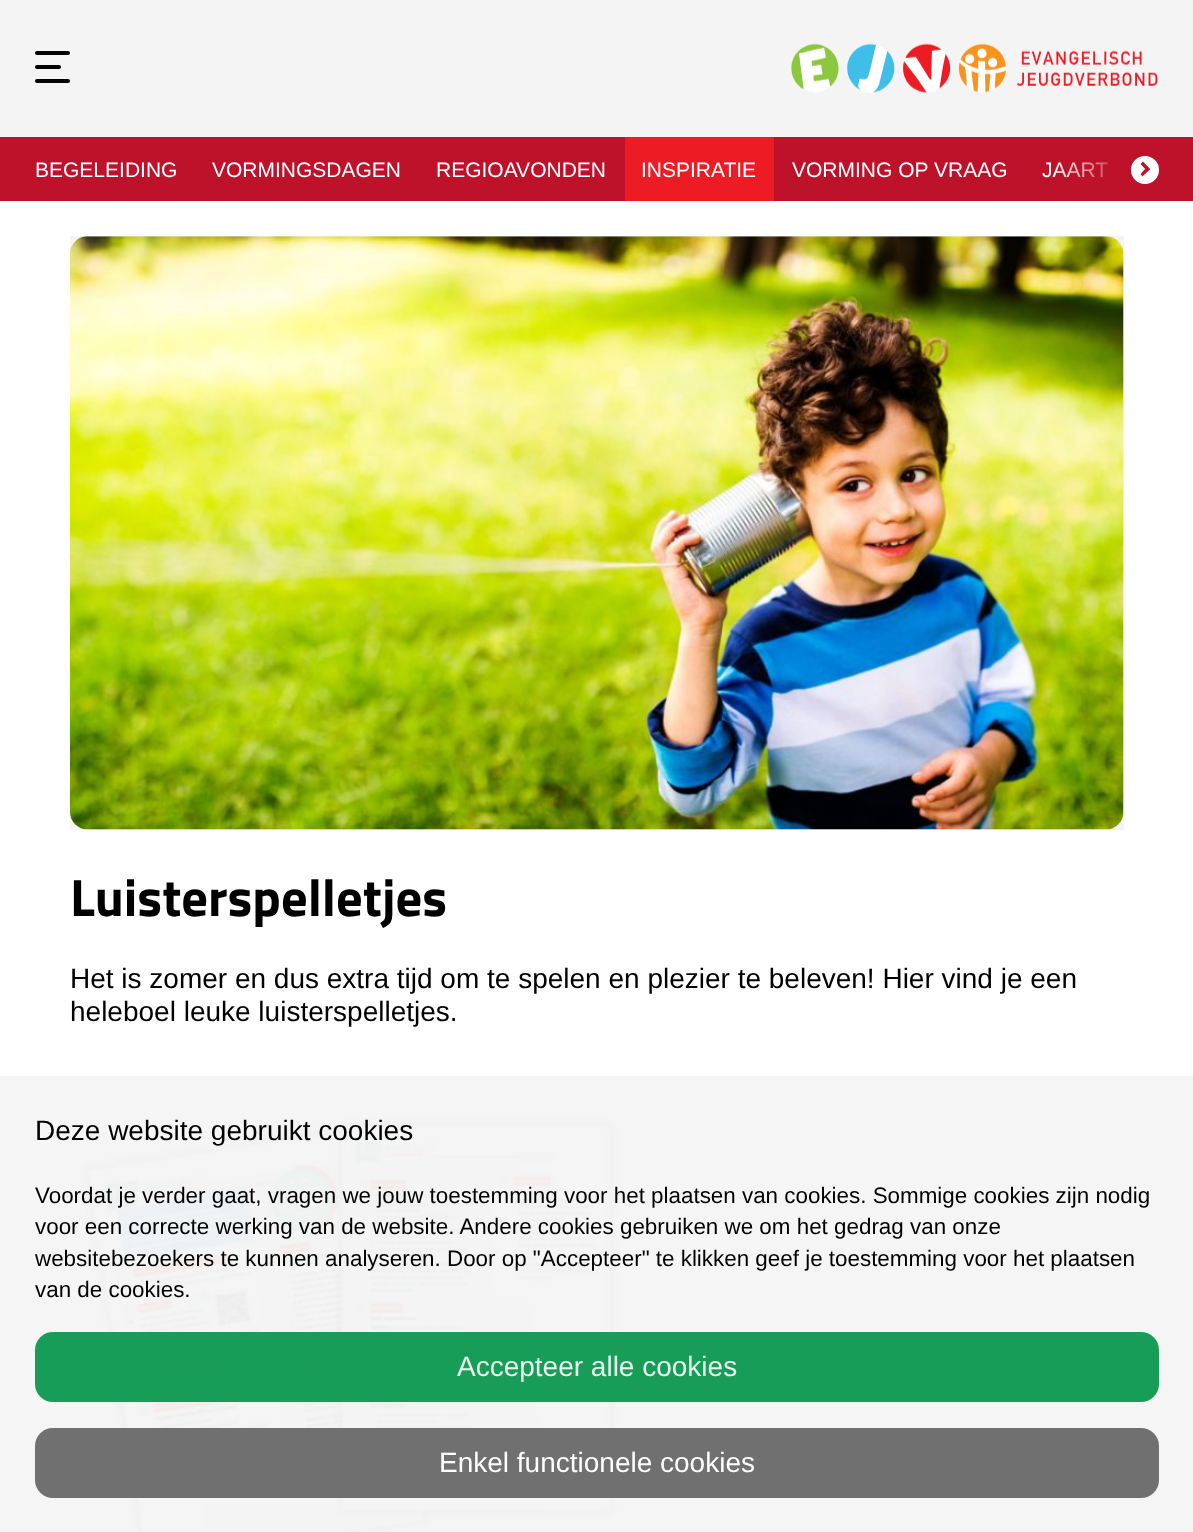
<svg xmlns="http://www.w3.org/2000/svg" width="1193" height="1532">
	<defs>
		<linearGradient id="g1" gradientUnits="userSpaceOnUse" x1="1054" y1="169" x2="1159" y2="169"><stop offset="0" stop-color="#BD122A" stop-opacity="0" /><stop offset="0.7" stop-color="#BD122A" /></linearGradient>
	</defs>
	<rect width="100%" height="100%" fill="#FFFFFF" />
	<rect x="0" y="1076" width="1193" height="456" fill="#F5F5F5" />
	<rect x="0" y="0" width="1193" height="137" fill="#F4F4F4" />
	<rect x="35" y="65" width="26" height="4" rx="2" fill="#000000" />
	<rect x="35" y="51" width="35" height="4" rx="2" fill="#000000" />
	<rect x="35" y="79" width="35" height="4" rx="2" fill="#000000" />
	<image x="791" y="43" width="367" height="50" href="assets/img1.png" />
	<rect x="0" y="137" width="1193" height="64" fill="#BD122A" />
	<text x="1042" y="177" font-family="Liberation Sans" font-size="21" fill="#FFFFFF">JAART</text>
	<rect x="1056" y="162" width="52" height="15" fill="url(#g1)" />
	<circle cx="1145" cy="170" r="13" fill="#FFFFFF" stroke="#FFFFFF" stroke-width="2" />
	<path d="M1147.5 166.5L1140.5 174L1142.5 176.5L1150 169Z" fill="#BD122A" />
	<path d="M1143 161.5L1140.5 164L1147.5 171.5L1150 169Z" fill="#BD122A" />
	<g font-family="Liberation Sans" font-size="21" fill="#FFFFFF">
		<text x="35" y="177">BEGELEIDING</text>
		<text x="212" y="177">VORMINGSDAGEN</text>
		<text x="436" y="177">REGIOAVONDEN</text>
	</g>
	<rect x="625" y="137" width="149" height="64" fill="#ED1C24" />
	<g font-family="Liberation Sans" font-size="21" fill="#FFFFFF">
		<text x="641" y="177">INSPIRATIE</text>
		<text x="792" y="177">VORMING OP VRAAG</text>
	</g>
	<rect x="70" y="236" width="1054" height="594" fill="#F4F4F4" />
	<image x="70" y="236" width="1054" height="594" href="assets/img2.png" />
	<text x="70" y="916" font-family="Titillium Web" font-size="52.5" font-weight="700" fill="#000000">Luisterspelletjes</text>
	<g font-family="Liberation Sans" font-size="28" fill="#000000">
		<text x="70" y="988">Het is zomer en dus extra tijd om te spelen en plezier te beleven! Hier vind je een</text>
		<text x="70" y="1021">heleboel leuke luisterspelletjes.</text>
	</g>
	<image x="80" y="1118" width="539" height="414" href="assets/img3.png" />
	<text x="35" y="1140" font-family="Liberation Sans" font-size="28" fill="#000000">Deze website gebruikt cookies</text>
	<g font-family="Liberation Sans" font-size="22.4" fill="#000000">
		<text x="35" y="1203">Voordat je verder gaat, vragen we jouw toestemming voor het plaatsen van cookies. Sommige cookies zijn nodig</text>
		<text x="35" y="1234">voor een correcte werking van de website. Andere cookies gebruiken we om het gedrag van onze</text>
		<text x="35" y="1266">websitebezoekers te kunnen analyseren. Door op "Accepteer" te klikken geef je toestemming voor het plaatsen</text>
		<text x="35" y="1297">van de cookies.</text>
	</g>
	<rect x="35" y="1332" width="1124" height="70" rx="18" fill="#009347" fill-opacity="0.9" />
	<text x="457" y="1376" font-family="Liberation Sans" font-size="28" fill="#E8F5EE">Accepteer alle cookies</text>
	<rect x="35" y="1428" width="1124" height="70" rx="18" fill="#707070" />
	<text x="439" y="1472" font-family="Liberation Sans" font-size="28" fill="#FFFFFF">Enkel functionele cookies</text>
</svg>
